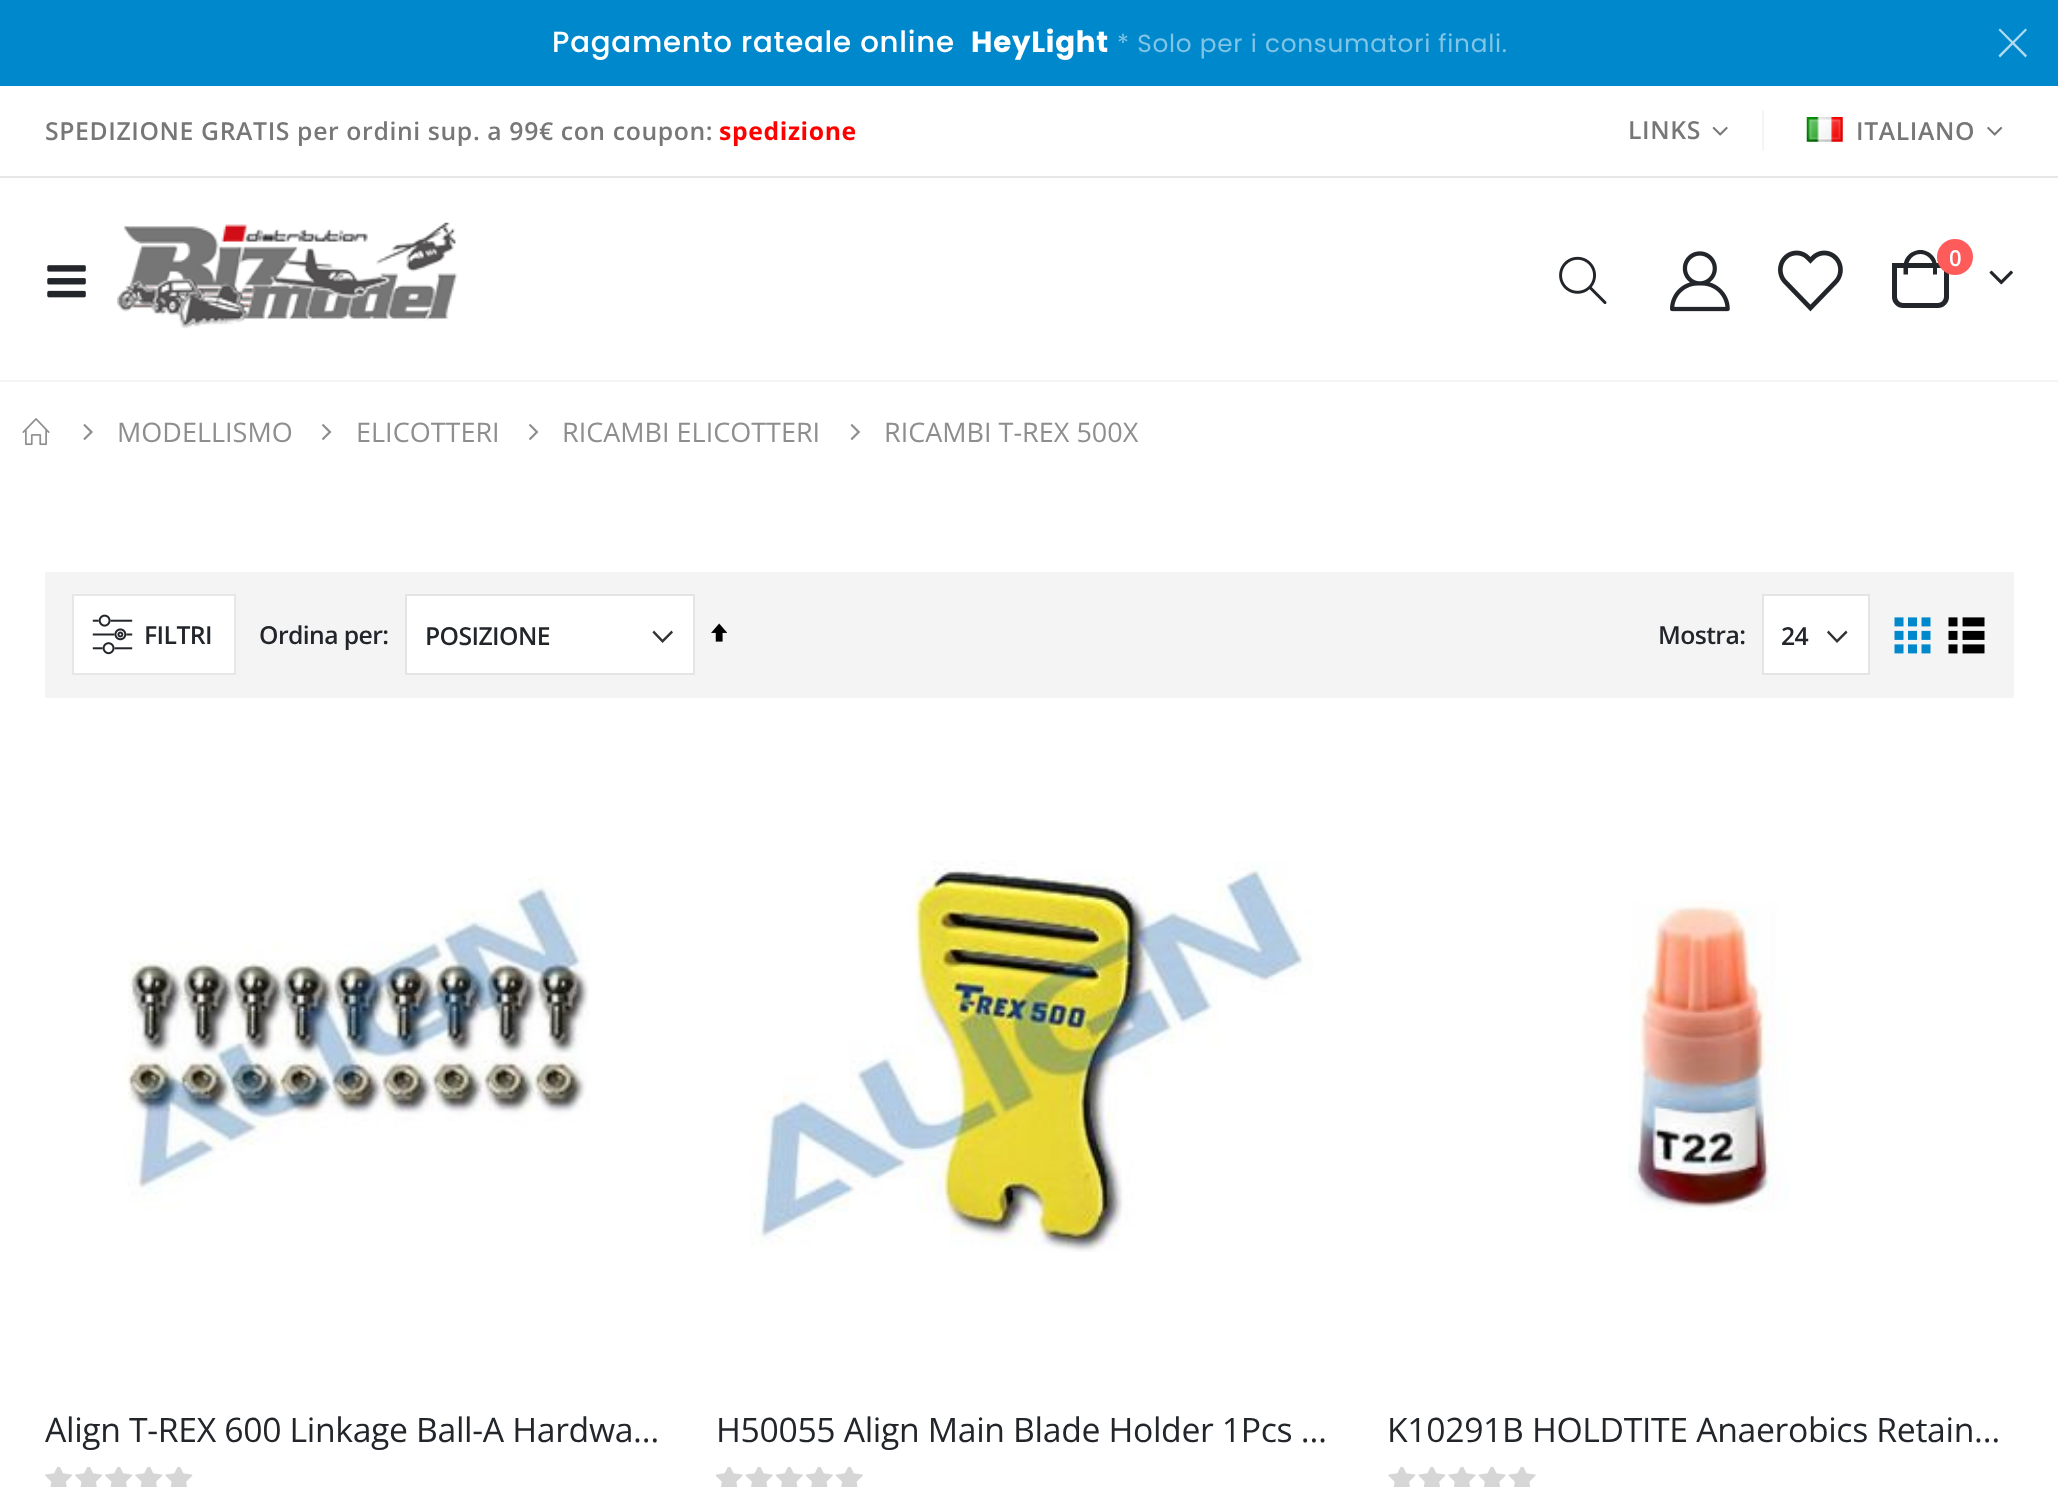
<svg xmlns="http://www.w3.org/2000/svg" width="2058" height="1487">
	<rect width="100%" height="100%" fill="#FFFFFF" />
	<rect x="0" y="0" width="2058" height="86" fill="#0088CC" />
	<text x="552" y="52" font-family="Poppins" font-size="29.25" font-weight="500" letter-spacing="0.75" fill="#FFFFFF">Pagamento rateale online</text>
	<text x="971" y="52" font-family="Poppins" font-size="29.25" font-weight="700" letter-spacing="0.75" fill="#FFFFFF">HeyLight</text>
	<text x="1117" y="52" font-family="Poppins" font-size="24.75" letter-spacing="0.75" fill="#80C4E6">* Solo per i consumatori finali.</text>
	<path d="M2000 28.5L2027 55.5L2025.5 57.5L1998.5 30Z" fill="#B3DBF0" />
	<path d="M2025.5 28.5L2027 30L2000 57.5L1998.5 55.5Z" fill="#B3DBF0" />
	<rect x="0" y="380" width="2058" height="2" fill="#F4F4F4" />
	<text x="45" y="140" font-family="Open Sans" font-size="24.75" font-weight="600" letter-spacing="0.62" fill="#777777">SPEDIZIONE GRATIS per ordini sup. a 99€ con coupon:</text>
	<text x="719" y="140" font-family="Open Sans" font-size="24.75" font-weight="700" letter-spacing="0.62" fill="#FF0000">spedizione</text>
	<text x="1628" y="139" font-family="Open Sans" font-size="24.75" font-weight="600" letter-spacing="0.62" fill="#777777">LINKS</text>
	<image x="1712" y="126" width="16" height="10" href="assets/img1.png" />
	<rect x="1762" y="110" width="2" height="41" fill="#F5F5F5" />
	<image x="1806" y="117" width="37" height="25" href="assets/img2.png" />
	<text x="1856" y="140" font-family="Open Sans" font-size="24.75" font-weight="600" letter-spacing="0.62" fill="#777777">ITALIANO</text>
	<image x="1987" y="126" width="16" height="10" href="assets/img3.png" />
	<rect x="0" y="176" width="2058" height="2" fill="#E7E7E7" />
	<image x="47" y="265" width="39" height="33" href="assets/img4.png" />
	<image x="117" y="222" width="341" height="107" href="assets/img5.png" />
	<image x="1559" y="256" width="48" height="48" href="assets/img6.png" />
	<image x="1670" y="251" width="60" height="61" href="assets/img7.png" />
	<image x="1778" y="250" width="65" height="62" href="assets/img8.png" />
	<path d="M1894.5 265.5H1946.5V297C1946.5 301.5 1942.5 305.5 1938 305.5H1903C1898.5 305.5 1894.5 301.5 1894.5 297Z" fill="none" stroke="#222529" stroke-width="5" />
	<path d="M1920.5 250C1929.5 250 1937 257.5 1937 266.5V274.5H1903.5V266.5C1903.5 257.5 1911 250 1920.5 250ZM1920.5 254C1927 254 1933 260 1933 266.5V274.5H1908V266.5C1908 260 1913.5 254 1920.5 254Z" fill="#222529" fill-rule="evenodd" />
	<circle cx="1955" cy="257" r="18" fill="#FF5B5B" />
	<text x="1949" y="266" font-family="Open Sans" font-size="22" font-weight="600" fill="#FFFFFF">0</text>
	<image x="1989" y="270" width="24" height="15" href="assets/img9.png" />
	<image x="22" y="418" width="28" height="28" href="assets/img10.png" />
	<image x="83" y="424" width="10" height="16" href="assets/img11.png" />
	<text x="117" y="442" font-family="Open Sans" font-size="27" fill="#8E8E8E">MODELLISMO</text>
	<image x="322" y="424" width="10" height="16" href="assets/img12.png" />
	<text x="356" y="442" font-family="Open Sans" font-size="27" fill="#8E8E8E">ELICOTTERI</text>
	<image x="529" y="424" width="10" height="16" href="assets/img12.png" />
	<text x="562" y="442" font-family="Open Sans" font-size="27" fill="#8E8E8E">RICAMBI ELICOTTERI</text>
	<image x="850" y="424" width="10" height="16" href="assets/img13.png" />
	<text x="884" y="442" font-family="Open Sans" font-size="27" fill="#8E8E8E">RICAMBI T-REX 500X</text>
	<rect x="45" y="572" width="1969" height="126" fill="#F4F4F4" />
	<rect x="73" y="595" width="162" height="79" fill="#FFFFFF" stroke="#E7E7E7" stroke-width="2" />
	<image x="92" y="614" width="41" height="41" href="assets/img14.png" />
	<g font-family="Open Sans" font-size="24.75" font-weight="600" letter-spacing="-0.6" fill="#222529">
		<text x="144" y="644">FILTRI</text>
		<text x="259" y="644">Ordina per:</text>
	</g>
	<rect x="407" y="596" width="286" height="77" fill="#FFFFFF" />
	<path d="M663 642.5L673 632.5L671.5 630.5L662.5 639.5L654 630.5L652.5 632.5L662.5 643Z" fill="#333333" fill-rule="evenodd" />
	<rect x="406" y="595" width="288" height="79" fill="none" stroke="#E4E4E4" stroke-width="2" />
	<text x="425" y="645" font-family="Open Sans" font-size="24.75" font-weight="600" letter-spacing="-0.6" fill="#222529">POSIZIONE</text>
	<image x="711" y="623" width="16" height="19" href="assets/img15.png" />
	<text x="1658" y="644" font-family="Open Sans" font-size="24.75" font-weight="600" letter-spacing="-0.6" fill="#222529">Mostra:</text>
	<rect x="1764" y="596" width="104" height="77" fill="#FFFFFF" />
	<path d="M1837.5 642.5L1847.5 632.5L1846 630.5L1837 639.5L1828.5 630.5L1827 632.5L1837 643Z" fill="#333333" fill-rule="evenodd" />
	<rect x="1763" y="595" width="106" height="79" fill="none" stroke="#E4E4E4" stroke-width="2" />
	<text x="1781" y="645" font-family="Open Sans" font-size="24.75" font-weight="600" letter-spacing="-0.6" fill="#222529">24</text>
	<image x="1894" y="617" width="37" height="37" href="assets/img16.png" />
	<image x="1948" y="617" width="37" height="37" href="assets/img17.png" />
	<image x="123" y="876" width="467" height="334" href="assets/img18.png" />
	<text x="45" y="1442" font-family="Open Sans" font-size="33.75" letter-spacing="-0.35" fill="#222529">Align T-REX 600 Linkage Ball-A Hardwa…</text>
	<image x="45" y="1467" width="148" height="20" href="assets/img19.png" />
	<image x="750" y="860" width="563" height="392" href="assets/img20.png" />
	<text x="716" y="1442" font-family="Open Sans" font-size="33.75" letter-spacing="-0.35" fill="#222529">H50055 Align Main Blade Holder 1Pcs …</text>
	<image x="716" y="1467" width="147" height="20" href="assets/img21.png" />
	<image x="1628" y="900" width="161" height="312" href="assets/img22.png" />
	<text x="1387" y="1442" font-family="Open Sans" font-size="33.75" letter-spacing="-0.35" fill="#222529">K10291B HOLDTITE Anaerobics Retain…</text>
	<image x="1388" y="1467" width="148" height="20" href="assets/img23.png" />
</svg>
